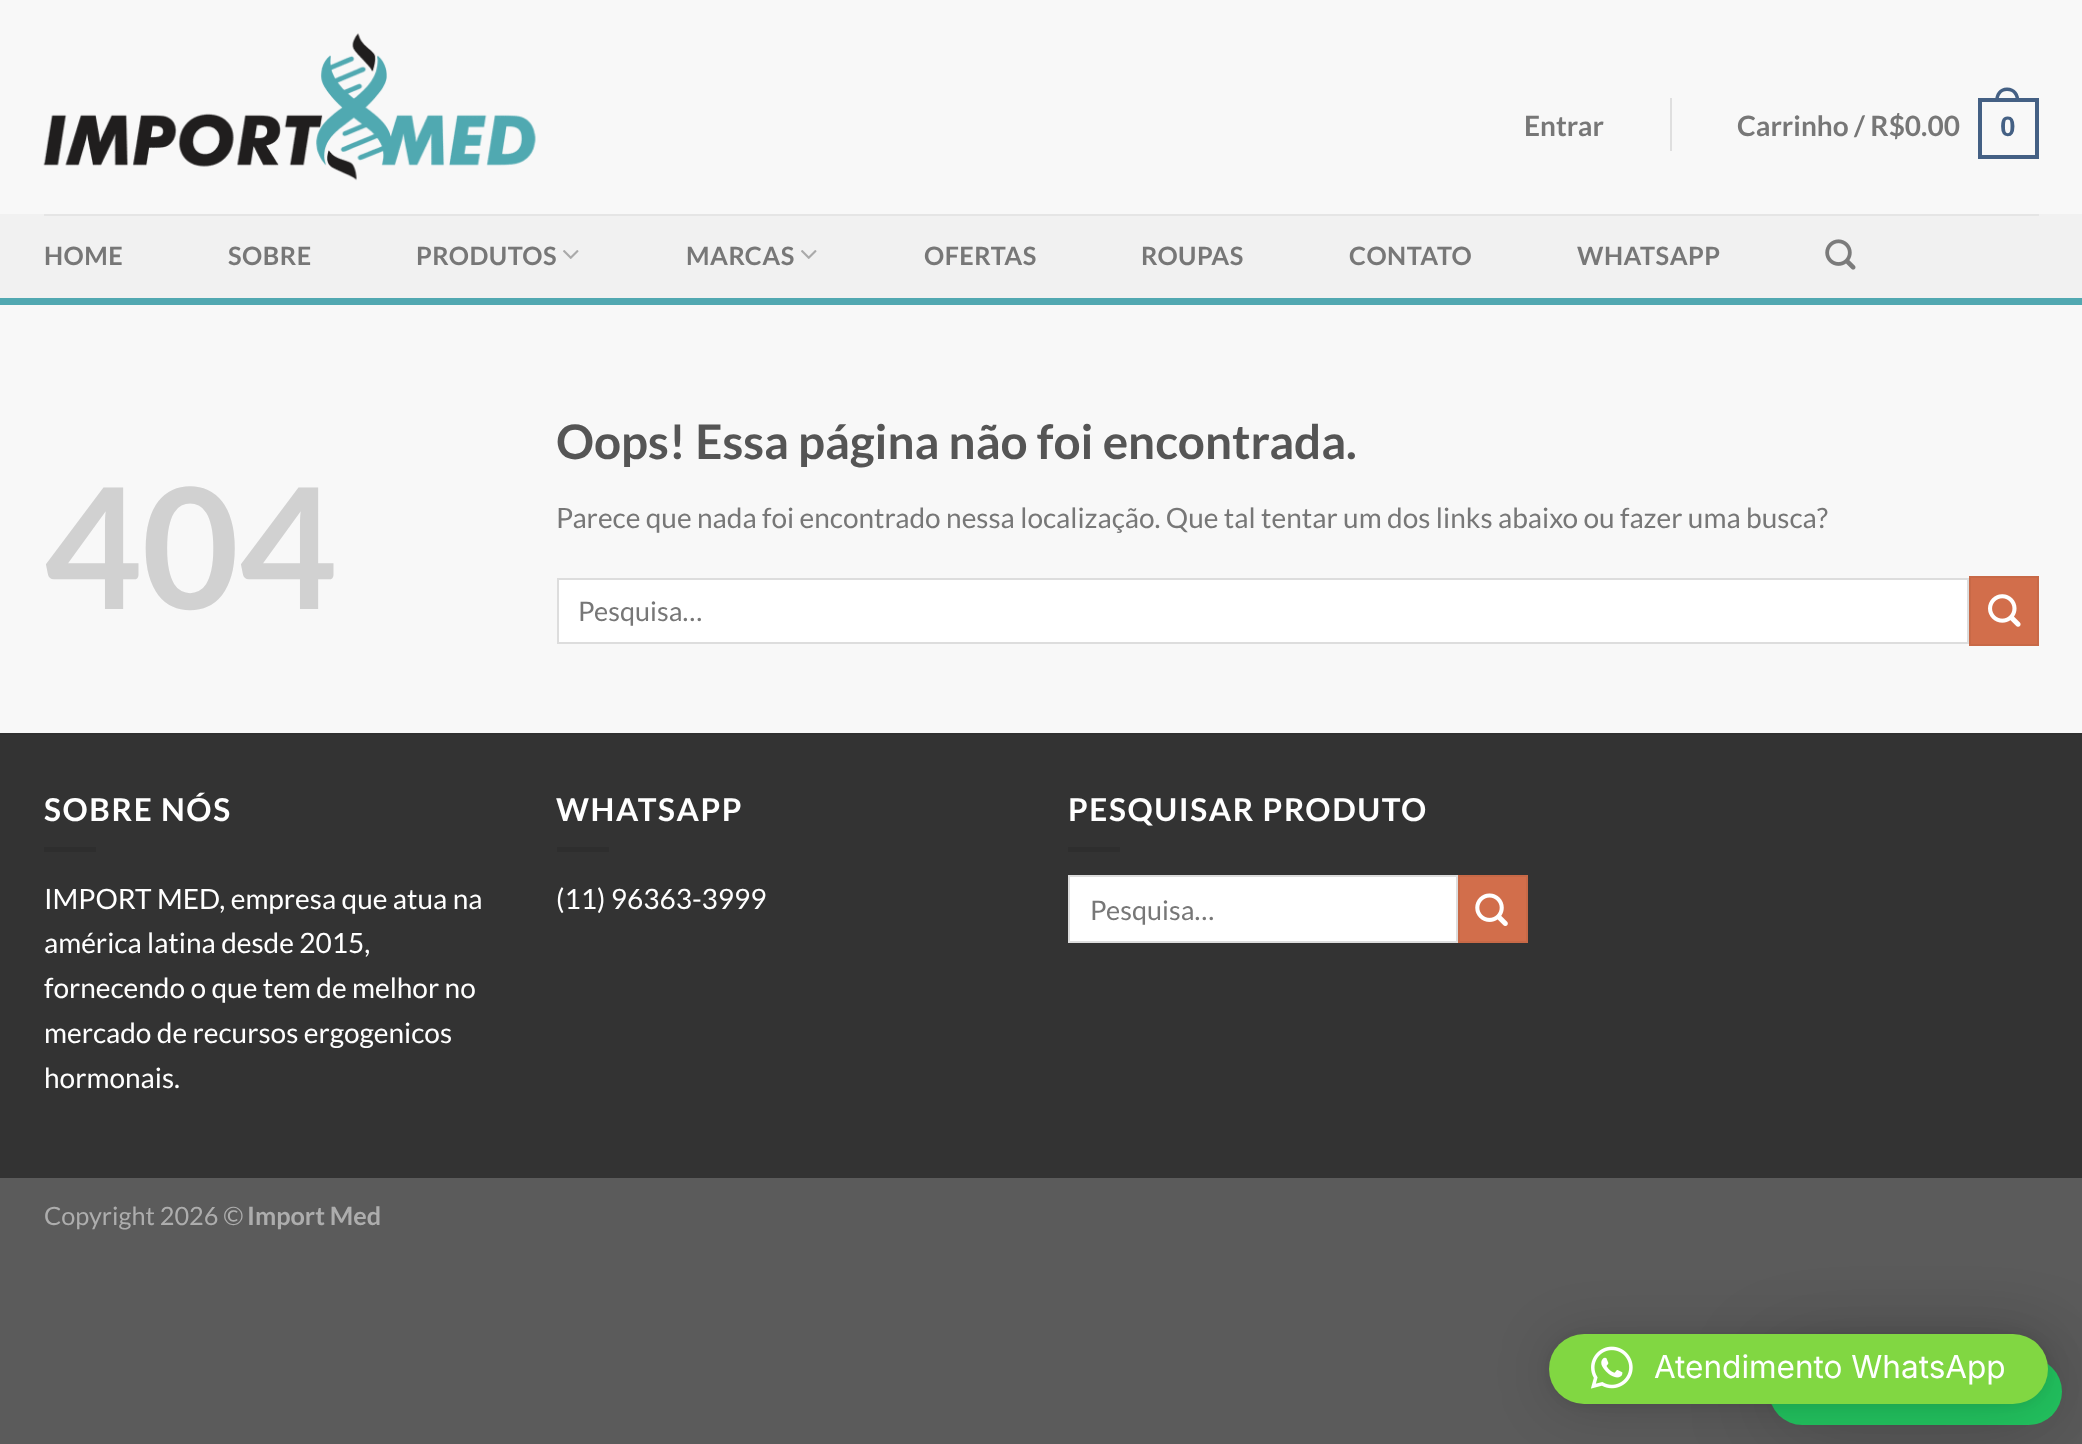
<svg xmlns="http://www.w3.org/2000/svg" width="2082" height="1444">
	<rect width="100%" height="100%" fill="#5B5B5B" />
	<rect x="0" y="0" width="2082" height="733" fill="#F8F8F8" />
	<image x="43" y="33" width="493" height="148" href="assets/img1.png" />
	<text x="1524" y="136" font-family="Lato" font-size="28" font-weight="700" fill="#777777">Entrar</text>
	<rect x="1670" y="98" width="2" height="53" fill="#DFDFDF" />
	<text x="1737" y="136" font-family="Lato" font-size="28" font-weight="700" fill="#777777">Carrinho / R$0.00</text>
	<rect x="1980" y="100" width="57" height="57" fill="none" stroke="#446084" stroke-width="4" />
	<path d="M2007 87.5C2015.5 87.5 2019.5 94 2019.5 101.5H1995C1995 94 1999 87.5 2007 87.5ZM2007 91C2013.5 91 2016 96 2016 101.5H1998.5C1998.5 96 2001 91 2007 91Z" fill="#446084" fill-rule="evenodd" />
	<text x="2000" y="136" font-family="Liberation Sans" font-size="28" font-weight="700" fill="#446084">0</text>
	<rect x="0" y="214" width="2082" height="84" fill="#F1F1F1" />
	<rect x="44" y="214" width="1995" height="2" fill="#E5E5E5" />
	<rect x="0" y="298" width="2082" height="7" fill="#51A8B1" />
	<g font-family="Lato" font-size="25.25" font-weight="700" letter-spacing="0.5" fill="#777777">
		<text x="44" y="265">HOME</text>
		<text x="228" y="265">SOBRE</text>
		<text x="416" y="265">PRODUTOS</text>
	</g>
	<image x="563" y="250" width="16" height="9" href="assets/img2.png" />
	<text x="686" y="265" font-family="Lato" font-size="25.25" font-weight="700" letter-spacing="0.5" fill="#777777">MARCAS</text>
	<image x="801" y="250" width="16" height="9" href="assets/img2.png" />
	<g font-family="Lato" font-size="25.25" font-weight="700" letter-spacing="0.5" fill="#777777">
		<text x="924" y="265">OFERTAS</text>
		<text x="1141" y="265">ROUPAS</text>
		<text x="1349" y="265">CONTATO</text>
		<text x="1577" y="265">WHATSAPP</text>
	</g>
	<image x="1825" y="239" width="31" height="31" href="assets/img3.png" />
	<text x="44" y="609" font-family="Lato" font-size="168" font-weight="700" fill="#D1D1D1">404</text>
	<text x="556" y="459" font-family="Lato" font-size="47.6" font-weight="700" fill="#555555">Oops! Essa página não foi encontrada.</text>
	<text x="556" y="528" font-family="Lato" font-size="28" fill="#777777">Parece que nada foi encontrado nessa localização. Que tal tentar um dos links abaixo ou fazer uma busca?</text>
	<rect x="558" y="579" width="1410" height="64" fill="#FFFFFF" stroke="#DDDDDD" stroke-width="2" />
	<text x="578" y="621" font-family="Lato" font-size="27" fill="#777777">Pesquisa…</text>
	<rect x="1970" y="577" width="68" height="68" fill="#D26E4B" stroke="#C86947" stroke-width="2" />
	<image x="1988" y="594" width="33" height="33" href="assets/img4.png" />
	<rect x="0" y="735" width="2082" height="443" fill="#333333" />
	<rect x="0" y="733" width="2082" height="2" fill="#303030" />
	<text x="44" y="821" font-family="Lato" font-size="31.5" font-weight="700" letter-spacing="1.6" fill="#FFFFFF">SOBRE NÓS</text>
	<rect x="44" y="847" width="52" height="5" fill="#2E2E2E" />
	<g font-family="Lato" font-size="28" fill="#FFFFFF">
		<text x="44" y="909">IMPORT MED, empresa que atua na</text>
		<text x="44" y="953">américa latina desde 2015,</text>
		<text x="44" y="998">fornecendo o que tem de melhor no</text>
		<text x="44" y="1043">mercado de recursos ergogenicos</text>
		<text x="44" y="1088">hormonais.</text>
	</g>
	<text x="556" y="821" font-family="Lato" font-size="31.5" font-weight="700" letter-spacing="1.6" fill="#FFFFFF">WHATSAPP</text>
	<rect x="557" y="847" width="52" height="5" fill="#2E2E2E" />
	<text x="556" y="909" font-family="Lato" font-size="28" fill="#FFFFFF">(11) 96363-3999</text>
	<text x="1068" y="821" font-family="Lato" font-size="31.5" font-weight="700" letter-spacing="1.6" fill="#FFFFFF">PESQUISAR PRODUTO</text>
	<rect x="1068" y="847" width="52" height="5" fill="#2E2E2E" />
	<rect x="1069" y="876" width="388" height="66" fill="#FFFFFF" stroke="#DDDDDD" stroke-width="2" />
	<text x="1090" y="920" font-family="Lato" font-size="27" fill="#777777">Pesquisa…</text>
	<rect x="1459" y="876" width="68" height="66" fill="#D26E4B" stroke="#C86947" stroke-width="2" />
	<image x="1475" y="893" width="33" height="33" href="assets/img5.png" />
	<text x="44" y="1225" font-family="Lato" font-size="25.25" fill="#ADADAD">Copyright 2026 ©</text>
	<text x="247" y="1225" font-family="Lato" font-size="25.25" font-weight="700" fill="#ADADAD">Import Med</text>
	<rect x="1769" y="1358" width="293" height="67" rx="33.5" fill="#000000" fill-opacity="0.2" filter="blur(44px)" />
	<rect x="1769" y="1358" width="293" height="67" rx="33.5" fill="#22C15E" />
	<rect x="1549" y="1337" width="499" height="70" rx="35" fill="#000000" fill-opacity="0.16" filter="blur(28px)" />
	<rect x="1549" y="1335" width="499" height="70" rx="35" fill="#000000" fill-opacity="0.06" filter="blur(5px)" />
	<rect x="1549" y="1334" width="499" height="70" rx="35" fill="#81D742" />
	<image x="1590" y="1346" width="43" height="43" href="assets/img6.png" />
	<text x="1654" y="1378" font-family="Inter" font-size="31.5" fill="#FFFFFF">Atendimento WhatsApp</text>
</svg>
